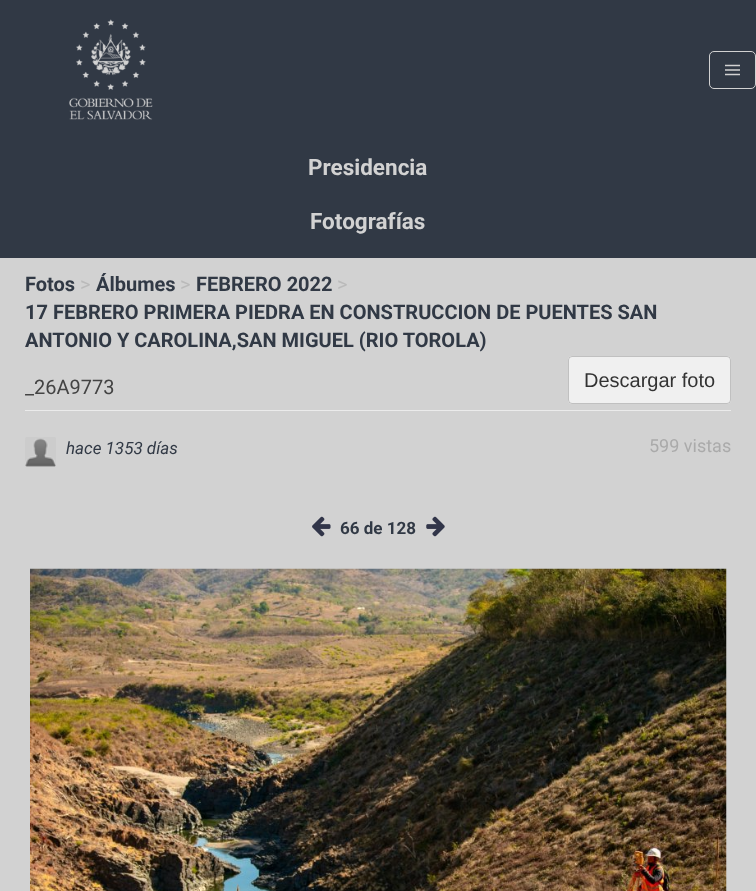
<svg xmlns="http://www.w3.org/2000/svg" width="756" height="891">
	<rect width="100%" height="100%" fill="#D2D2D2" />
	<rect x="0" y="0" width="756" height="258" fill="#313945" />
	<image x="69" y="19" width="84" height="101" href="assets/img1.png" />
	<rect x="709.5" y="51.5" width="46" height="37" rx="4.5" fill="none" stroke="#D2D2D2" />
	<image x="725" y="64" width="15" height="12" href="assets/img2.png" />
	<g font-family="Roboto" font-size="22.5" font-weight="700" fill="#D2D2D2">
		<text x="308" y="175">Presidencia</text>
		<text x="310" y="229">Fotografías</text>
	</g>
	<text x="25" y="291" font-family="Roboto" font-size="20" font-weight="700" fill="#313945">Fotos</text>
	<text x="80" y="291" font-family="Roboto" font-size="20" fill="#BABABA">&gt;</text>
	<text x="96" y="291" font-family="Roboto" font-size="20" font-weight="700" fill="#313945">Álbumes</text>
	<text x="180" y="291" font-family="Roboto" font-size="20" fill="#BABABA">&gt;</text>
	<text x="196" y="291" font-family="Roboto" font-size="20" font-weight="700" fill="#313945">FEBRERO 2022</text>
	<text x="337" y="291" font-family="Roboto" font-size="20" fill="#BABABA">&gt;</text>
	<g font-family="Roboto" font-size="20" font-weight="700" fill="#313945">
		<text x="25" y="319">17 FEBRERO PRIMERA PIEDRA EN CONSTRUCCION DE PUENTES SAN</text>
		<text x="25" y="347">ANTONIO Y CAROLINA,SAN MIGUEL (RIO TOROLA)</text>
	</g>
	<rect x="25" y="410" width="706" height="1" fill="#EBEBEB" />
	<text x="25" y="394" font-family="Roboto" font-size="20" fill="#444444">_26A9773</text>
	<rect x="568" y="356" width="163" height="48" rx="4" fill="#F0F0F0" />
	<rect x="568.5" y="356.5" width="162" height="47" rx="3.5" fill="none" stroke="#000000" stroke-opacity="0.2" />
	<text x="584" y="387" font-family="Liberation Sans" font-size="20" fill="#333333">Descargar foto</text>
	<image x="25" y="437" width="31" height="30" href="assets/img3.png" />
	<text x="66" y="454" font-family="Roboto" font-size="17" font-style="italic" fill="#313945">hace 1353 días</text>
	<text x="649" y="452" font-family="Roboto" font-size="18" fill="#AAAAAA">599 vistas</text>
	<image x="312" y="516" width="19" height="21" href="assets/img4.png" />
	<text x="340" y="534" font-family="Roboto" font-size="17" font-weight="700" fill="#313945">66 de 128</text>
	<image x="426" y="516" width="19" height="21" href="assets/img5.png" />
	<image x="30" y="568" width="697" height="323" href="assets/img6.png" />
</svg>
